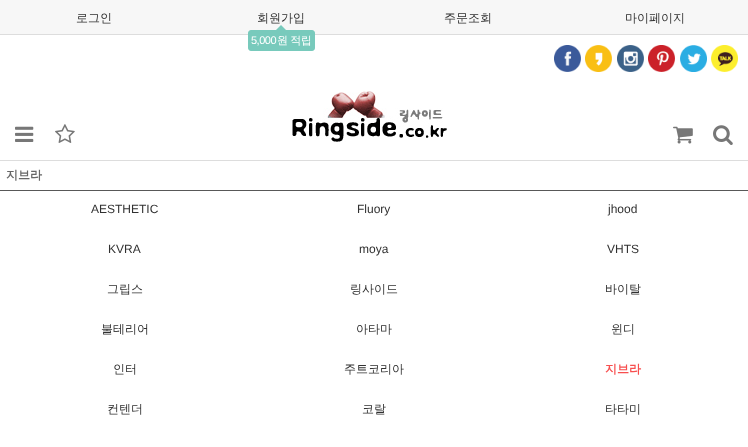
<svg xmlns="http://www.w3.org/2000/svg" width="748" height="447">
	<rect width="100%" height="100%" fill="#FFFFFF" />
	<rect x="0" y="160" width="748" height="1" fill="#DDDDDD" />
	<rect x="0" y="0" width="748" height="34" fill="#F7F7F7" />
	<rect x="0" y="34" width="748" height="1" fill="#DDDDDD" />
	<g font-family="WenQuanYi Zen Hei" font-size="12" font-weight="500" fill="#313131">
		<text x="76" y="22">로그인</text>
		<text x="257" y="22">회원가입</text>
	</g>
	<path d="M286 30H276L281 25Z" fill="#78CABC" />
	<rect x="248.5" y="30.5" width="66" height="20" rx="2.5" fill="#78CABC" stroke="#78CABC" />
	<text x="251" y="44" font-family="Liberation Sans" font-size="11" letter-spacing="-0.5" fill="#FFFFFF">5,000</text>
	<text x="277" y="44" font-family="WenQuanYi Zen Hei" font-size="11" font-weight="500" letter-spacing="-0.5" fill="#FFFFFF">원 적립</text>
	<g font-family="WenQuanYi Zen Hei" font-size="12" font-weight="500" fill="#313131">
		<text x="444" y="22">주문조회</text>
		<text x="625" y="22">마이페이지</text>
	</g>
	<image x="554" y="45" width="27" height="27" href="assets/img1.png" />
	<image x="585" y="45" width="27" height="27" href="assets/img2.png" />
	<image x="617" y="45" width="27" height="27" href="assets/img3.png" />
	<image x="648" y="45" width="27" height="27" href="assets/img4.png" />
	<image x="680" y="45" width="27" height="27" href="assets/img5.png" />
	<image x="711" y="45" width="27" height="27" href="assets/img6.png" />
	<image x="15" y="126" width="19" height="16" href="assets/img7.png" />
	<image x="55" y="124" width="20" height="19" href="assets/img8.png" />
	<image x="292" y="91" width="155" height="51" href="assets/img9.png" />
	<image x="673" y="126" width="20" height="18" href="assets/img10.png" />
	<image x="713" y="125" width="20" height="20" href="assets/img11.png" />
	<rect x="0" y="190" width="748" height="1" fill="#585858" />
	<text x="6" y="179" font-family="WenQuanYi Zen Hei" font-size="12" font-weight="700" fill="#676767">지브라</text>
	<g font-family="Liberation Sans" font-size="12" fill="#313131">
		<text x="91" y="213">AESTHETIC</text>
		<text x="357" y="213">Fluory</text>
		<text x="608" y="213">jhood</text>
		<text x="108" y="253">KVRA</text>
		<text x="359" y="253">moya</text>
		<text x="607" y="253">VHTS</text>
	</g>
	<g font-family="WenQuanYi Zen Hei" font-size="12" font-weight="500" fill="#313131">
		<text x="107" y="293">그립스</text>
		<text x="350" y="293">링사이드</text>
		<text x="605" y="293">바이탈</text>
		<text x="101" y="333">불테리어</text>
		<text x="356" y="333">아타마</text>
		<text x="611" y="333">윈디</text>
		<text x="113" y="373">인터</text>
		<text x="344" y="373">주트코리아</text>
	</g>
	<text x="605" y="373" font-family="WenQuanYi Zen Hei" font-size="12" font-weight="700" fill="#F74F4F">지브라</text>
	<g font-family="WenQuanYi Zen Hei" font-size="12" font-weight="500" fill="#313131">
		<text x="107" y="413">컨텐더</text>
		<text x="362" y="413">코랄</text>
		<text x="605" y="413">타타미</text>
	</g>
</svg>
